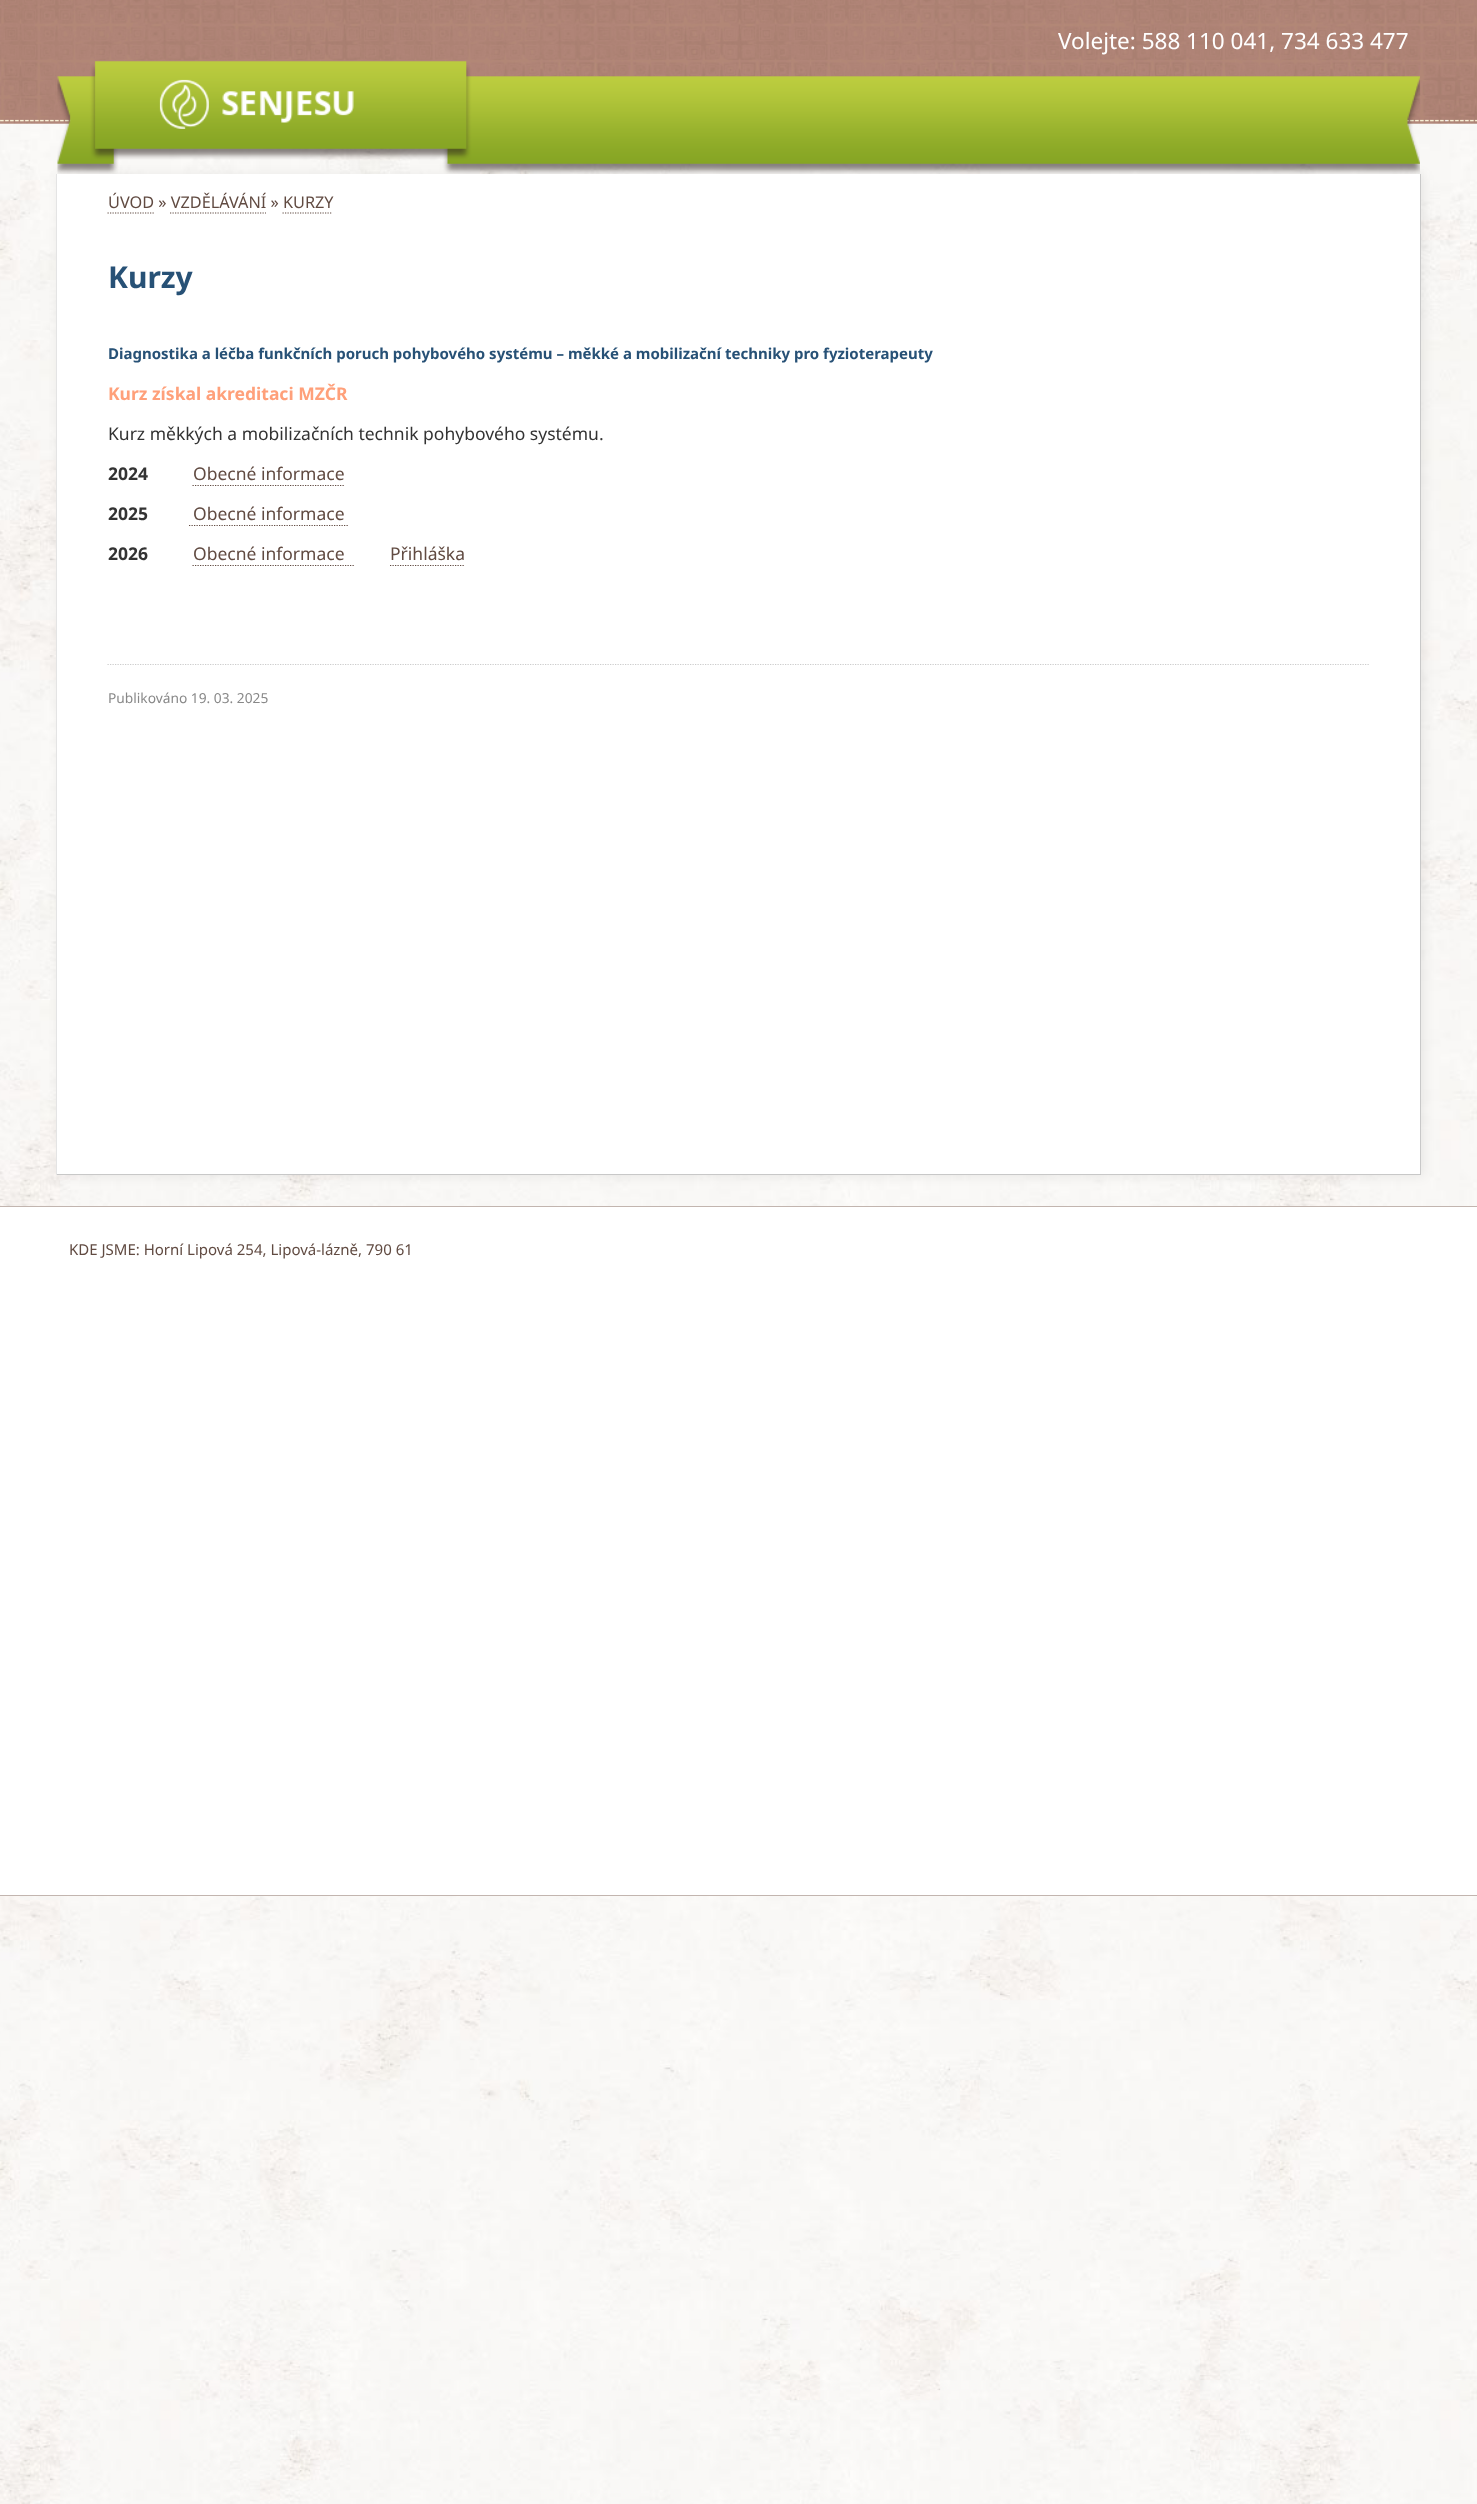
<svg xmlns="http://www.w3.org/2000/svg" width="1477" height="2504">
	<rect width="100%" height="100%" fill="#FFFFFF" />
	<image x="0" y="122" width="1477" height="2382" href="assets/img1.png" />
	<image x="0" y="0" width="1477" height="124" href="assets/img2.png" />
	<text x="1058" y="49" font-family="Noto Sans" font-size="22.5" fill="#FFFFFF">Volejte: 588 110 041, 734 633 477</text>
	<image x="57" y="61" width="1363" height="113" href="assets/img3.png" />
	<image x="159" y="79" width="195" height="50" href="assets/img4.png" />
	<rect x="59" y="175" width="1365" height="1001" fill="#000000" fill-opacity="0.07" filter="blur(6px)" />
	<rect x="57" y="174" width="1363" height="1000" fill="#FFFFFF" />
	<rect x="1420" y="174" width="1" height="1001" fill="#C8C8C8" />
	<rect x="56" y="1174" width="1365" height="1" fill="#C8C8C8" />
	<rect x="56" y="174" width="1" height="1001" fill="#E4E4E4" />
	<text x="108" y="208" font-family="Noto Sans" font-size="16.25" fill="#614B42">ÚVOD » VZDĚLÁVÁNÍ » KURZY</text>
	<path d="M107.5 213H154" fill="none" stroke="#614B42" stroke-width="1.2" stroke-dasharray="1.25 1.25" />
	<path d="M170 213H266" fill="none" stroke="#614B42" stroke-width="1.2" stroke-dasharray="1.25 1.25" />
	<path d="M282.5 213H332.5" fill="none" stroke="#614B42" stroke-width="1.2" stroke-dasharray="1.25 1.25" />
	<text x="108" y="288" font-family="Noto Sans" font-size="30" font-weight="700" fill="#275176">Kurzy</text>
	<text x="108" y="359" font-family="Noto Sans" font-size="15" font-weight="700" fill="#275176">Diagnostika a léčba funkčních poruch pohybového systému – měkké a mobilizační techniky pro fyzioterapeuty</text>
	<text x="108" y="400" font-family="Noto Sans" font-size="17.5" font-weight="700" fill="#FFA07A">Kurz získal akreditaci MZČR</text>
	<text x="108" y="440" font-family="Noto Sans" font-size="17.5" fill="#333333">Kurz měkkých a mobilizačních technik pohybového systému.</text>
	<text x="108" y="480" font-family="Noto Sans" font-size="17.5" font-weight="700" fill="#333333">2024</text>
	<text x="193" y="480" font-family="Noto Sans" font-size="17.5" fill="#614B42">Obecné informace</text>
	<path d="M192.5 485.5H345" fill="none" stroke="#614B42" stroke-width="1.2" stroke-dasharray="1.25 1.25" />
	<text x="108" y="520" font-family="Noto Sans" font-size="17.5" font-weight="700" fill="#333333">2025</text>
	<text x="193" y="520" font-family="Noto Sans" font-size="17.5" fill="#614B42">Obecné informace</text>
	<path d="M189 525.5H349" fill="none" stroke="#614B42" stroke-width="1.2" stroke-dasharray="1.25 1.25" />
	<text x="108" y="560" font-family="Noto Sans" font-size="17.5" font-weight="700" fill="#333333">2026</text>
	<text x="193" y="560" font-family="Noto Sans" font-size="17.5" fill="#614B42">Obecné informace</text>
	<path d="M192.5 565.5H354" fill="none" stroke="#614B42" stroke-width="1.2" stroke-dasharray="1.25 1.25" />
	<text x="390" y="560" font-family="Noto Sans" font-size="17.5" fill="#614B42">Přihláška</text>
	<path d="M390 565.5H465" fill="none" stroke="#614B42" stroke-width="1.2" stroke-dasharray="1.25 1.25" />
	<path d="M107.5 664.5H1370" fill="none" stroke="#CCCCCC" stroke-width="1.2" stroke-dasharray="1.25 1.25" />
	<text x="108" y="703" font-family="Noto Sans" font-size="13.75" fill="#888888">Publikováno 19. 03. 2025</text>
	<rect x="0" y="1207" width="1477" height="688" fill="#FFFFFF" />
	<rect x="0" y="1206" width="1477" height="1" fill="#C2B5AF" />
	<rect x="0" y="1895" width="1477" height="1" fill="#C2B5AF" />
	<text x="69" y="1255" font-family="Noto Sans" font-size="15" fill="#614B42">KDE JSME: Horní Lipová 254, Lipová-lázně, 790 61</text>
</svg>
